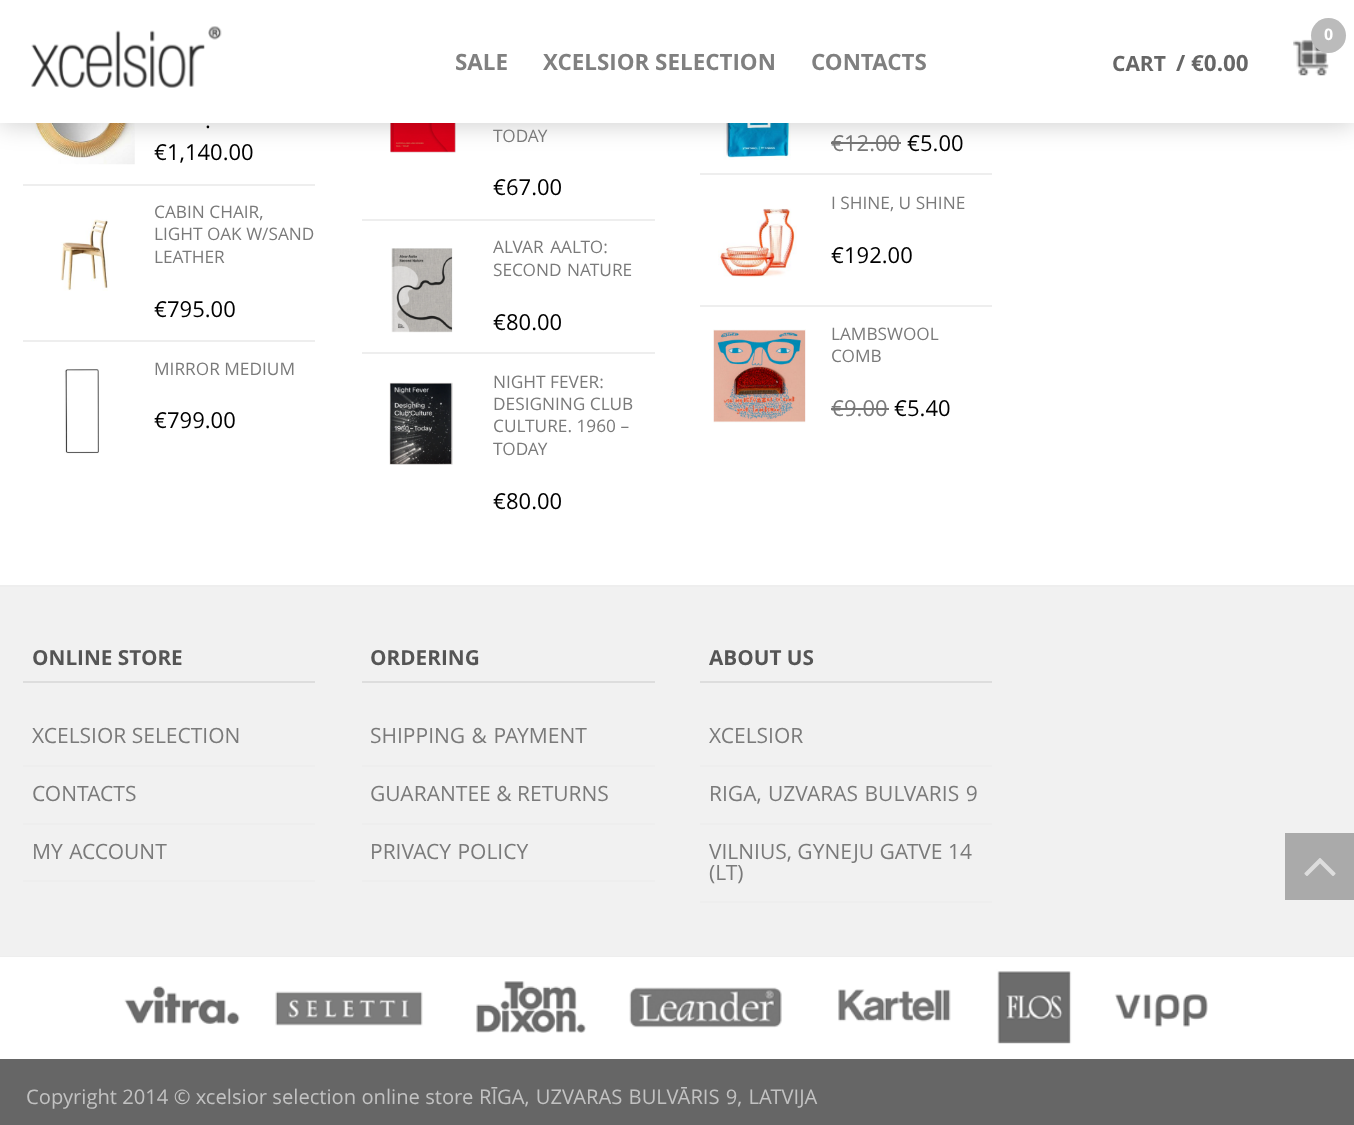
<svg xmlns="http://www.w3.org/2000/svg" width="1354" height="1125">
	<rect width="100%" height="100%" fill="#FFFFFF" />
	<image x="31" y="123" width="104" height="42" href="assets/img3.png" />
	<image x="390" y="123" width="66" height="30" href="assets/img6.png" />
	<image x="721" y="123" width="70" height="37" href="assets/img9.png" />
	<text x="831" y="151" font-family="Open Sans" font-size="22" fill="#7A7A7A">€12.00</text>
	<rect x="831" y="142" width="70" height="2" fill="#777777" />
	<rect x="0" y="2" width="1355" height="122" fill="#000000" fill-opacity="0.2" filter="blur(13px)" />
	<rect x="0" y="0" width="1354" height="123" fill="#FFFFFF" />
	<image x="31" y="26" width="191" height="62" href="assets/img1.png" />
	<g font-family="Open Sans" font-size="22.4" font-weight="700" fill="#808080">
		<text x="455" y="70">SALE</text>
		<text x="543" y="70">XCELSIOR SELECTION</text>
		<text x="811" y="70">CONTACTS</text>
	</g>
	<text x="1112" y="71" font-family="Open Sans" font-size="21" font-weight="700" fill="#666666">CART</text>
	<image x="1293" y="39" width="36" height="37" href="assets/img2.png" />
	<circle cx="1328.5" cy="35.5" r="17.5" fill="#BBBBBB" />
	<text x="1324" y="40" font-family="Open Sans" font-size="16" font-weight="700" fill="#FFFFFF">0</text>
	<text x="1176" y="71" font-family="Open Sans" font-size="22.4" font-weight="700" fill="#666666">/ €0.00</text>
	<rect x="23" y="184" width="292" height="2" fill="#EEEEEE" />
	<g font-family="Open Sans" font-size="22" fill="#000000">
		<text x="205" y="128">.</text>
		<text x="154" y="160">€1,140.00</text>
	</g>
	<rect x="23" y="340" width="292" height="2" fill="#EEEEEE" />
	<text x="154" y="218" font-family="Open Sans" font-size="17.25" fill="#7A7A7A">CABIN CHAIR,</text>
	<image x="60" y="219" width="48" height="72" href="assets/img4.png" />
	<g font-family="Open Sans" font-size="17.25" fill="#7A7A7A">
		<text x="154" y="240">LIGHT OAK W/SAND</text>
		<text x="154" y="263">LEATHER</text>
	</g>
	<text x="154" y="317" font-family="Open Sans" font-size="22" fill="#000000">€795.00</text>
	<image x="64" y="369" width="35" height="85" href="assets/img5.png" />
	<text x="154" y="375" font-family="Open Sans" font-size="17.25" fill="#7A7A7A">MIRROR MEDIUM</text>
	<text x="154" y="428" font-family="Open Sans" font-size="22" fill="#000000">€799.00</text>
	<rect x="362" y="219" width="293" height="2" fill="#EEEEEE" />
	<text x="493" y="142" font-family="Open Sans" font-size="17.25" fill="#7A7A7A">TODAY</text>
	<text x="493" y="195" font-family="Open Sans" font-size="22" fill="#000000">€67.00</text>
	<rect x="362" y="352" width="293" height="2" fill="#EEEEEE" />
	<image x="391" y="248" width="62" height="85" href="assets/img7.png" />
	<g font-family="Open Sans" font-size="17.25" fill="#7A7A7A">
		<text x="493" y="253" word-spacing="2">ALVAR AALTO:</text>
		<text x="493" y="276" word-spacing="1">SECOND NATURE</text>
	</g>
	<text x="493" y="330" font-family="Open Sans" font-size="22" fill="#000000">€80.00</text>
	<image x="389" y="382" width="64" height="83" href="assets/img8.png" />
	<g font-family="Open Sans" font-size="17.25" fill="#7A7A7A">
		<text x="493" y="388">NIGHT FEVER:</text>
		<text x="493" y="410">DESIGNING CLUB</text>
		<text x="493" y="432">CULTURE. 1960 –</text>
		<text x="493" y="455">TODAY</text>
	</g>
	<text x="493" y="509" font-family="Open Sans" font-size="22" fill="#000000">€80.00</text>
	<rect x="700" y="173" width="292" height="2" fill="#EEEEEE" />
	<text x="907" y="151" font-family="Open Sans" font-size="22" fill="#000000">€5.00</text>
	<rect x="700" y="305" width="292" height="2" fill="#EEEEEE" />
	<text x="831" y="209" font-family="Open Sans" font-size="17.25" fill="#7A7A7A">I SHINE, U SHINE</text>
	<image x="718" y="208" width="79" height="70" href="assets/img10.png" />
	<text x="831" y="263" font-family="Open Sans" font-size="22" fill="#000000">€192.00</text>
	<image x="713" y="329" width="93" height="94" href="assets/img11.png" />
	<g font-family="Open Sans" font-size="17.25" fill="#7A7A7A">
		<text x="831" y="340">LAMBSWOOL</text>
		<text x="831" y="362">COMB</text>
	</g>
	<text x="831" y="416" font-family="Open Sans" font-size="22" fill="#7A7A7A">€9.00</text>
	<rect x="831" y="408" width="58" height="2" fill="#777777" />
	<text x="894" y="416" font-family="Open Sans" font-size="22" fill="#000000">€5.40</text>
	<rect x="0" y="587" width="1354" height="369" fill="#F1F1F1" />
	<rect x="0" y="585" width="1354" height="2" fill="#EEEEEE" />
	<rect x="0" y="956" width="1354" height="1" fill="#EEEEEE" />
	<rect x="23" y="681" width="292" height="2" fill="#DDDDDD" />
	<text x="32" y="665" font-family="Open Sans" font-size="20.75" font-weight="700" fill="#555555">ONLINE STORE</text>
	<rect x="23" y="765" width="292" height="2" fill="#EEEEEE" />
	<text x="32" y="743" font-family="Open Sans" font-size="21" fill="#7A7A7A">XCELSIOR SELECTION</text>
	<rect x="23" y="823" width="292" height="2" fill="#EEEEEE" />
	<text x="32" y="801" font-family="Open Sans" font-size="21" fill="#7A7A7A">CONTACTS</text>
	<rect x="23" y="880" width="292" height="2" fill="#EEEEEE" />
	<text x="32" y="859" word-spacing="1" font-family="Open Sans" font-size="21" fill="#7A7A7A">MY ACCOUNT</text>
	<rect x="362" y="681" width="293" height="2" fill="#DDDDDD" />
	<text x="370" y="665" font-family="Open Sans" font-size="20.75" font-weight="700" fill="#555555">ORDERING</text>
	<rect x="362" y="765" width="293" height="2" fill="#EEEEEE" />
	<text x="370" y="743" word-spacing="1" font-family="Open Sans" font-size="21" fill="#7A7A7A">SHIPPING &amp; PAYMENT</text>
	<rect x="362" y="823" width="293" height="2" fill="#EEEEEE" />
	<text x="370" y="801" font-family="Open Sans" font-size="21" fill="#7A7A7A">GUARANTEE &amp; RETURNS</text>
	<rect x="362" y="880" width="293" height="2" fill="#EEEEEE" />
	<text x="370" y="859" word-spacing="1" font-family="Open Sans" font-size="21" fill="#7A7A7A">PRIVACY POLICY</text>
	<rect x="700" y="681" width="292" height="2" fill="#DDDDDD" />
	<text x="709" y="665" font-family="Open Sans" font-size="20.75" font-weight="700" fill="#555555">ABOUT US</text>
	<rect x="700" y="765" width="292" height="2" fill="#EEEEEE" />
	<text x="709" y="743" font-family="Open Sans" font-size="21" fill="#7A7A7A">XCELSIOR</text>
	<rect x="700" y="823" width="292" height="2" fill="#EEEEEE" />
	<text x="709" y="801" word-spacing="1" font-family="Open Sans" font-size="21" fill="#7A7A7A">RIGA, UZVARAS BULVARIS 9</text>
	<rect x="700" y="901" width="292" height="2" fill="#EEEEEE" />
	<g font-family="Open Sans" font-size="21" fill="#7A7A7A">
		<text x="709" y="859">VILNIUS, GYNEJU GATVE 14</text>
		<text x="709" y="880">(LT)</text>
	</g>
	<image x="0" y="957" width="1354" height="87" href="assets/img12.png" />
	<rect x="0" y="1059" width="1354" height="66" fill="#666666" />
	<g font-family="Open Sans" font-size="20.2" fill="#C2C2C2">
		<text x="26" y="1104">Copyright 2014 © xcelsior selection online store</text>
		<text x="479" y="1104" word-spacing="1">RĪGA, UZVARAS BULVĀRIS 9, LATVIJA</text>
	</g>
	<rect x="1285" y="833" width="69" height="67" fill="#AAAAAA" />
	<image x="1304" y="858" width="32" height="18" href="assets/img13.png" />
</svg>
